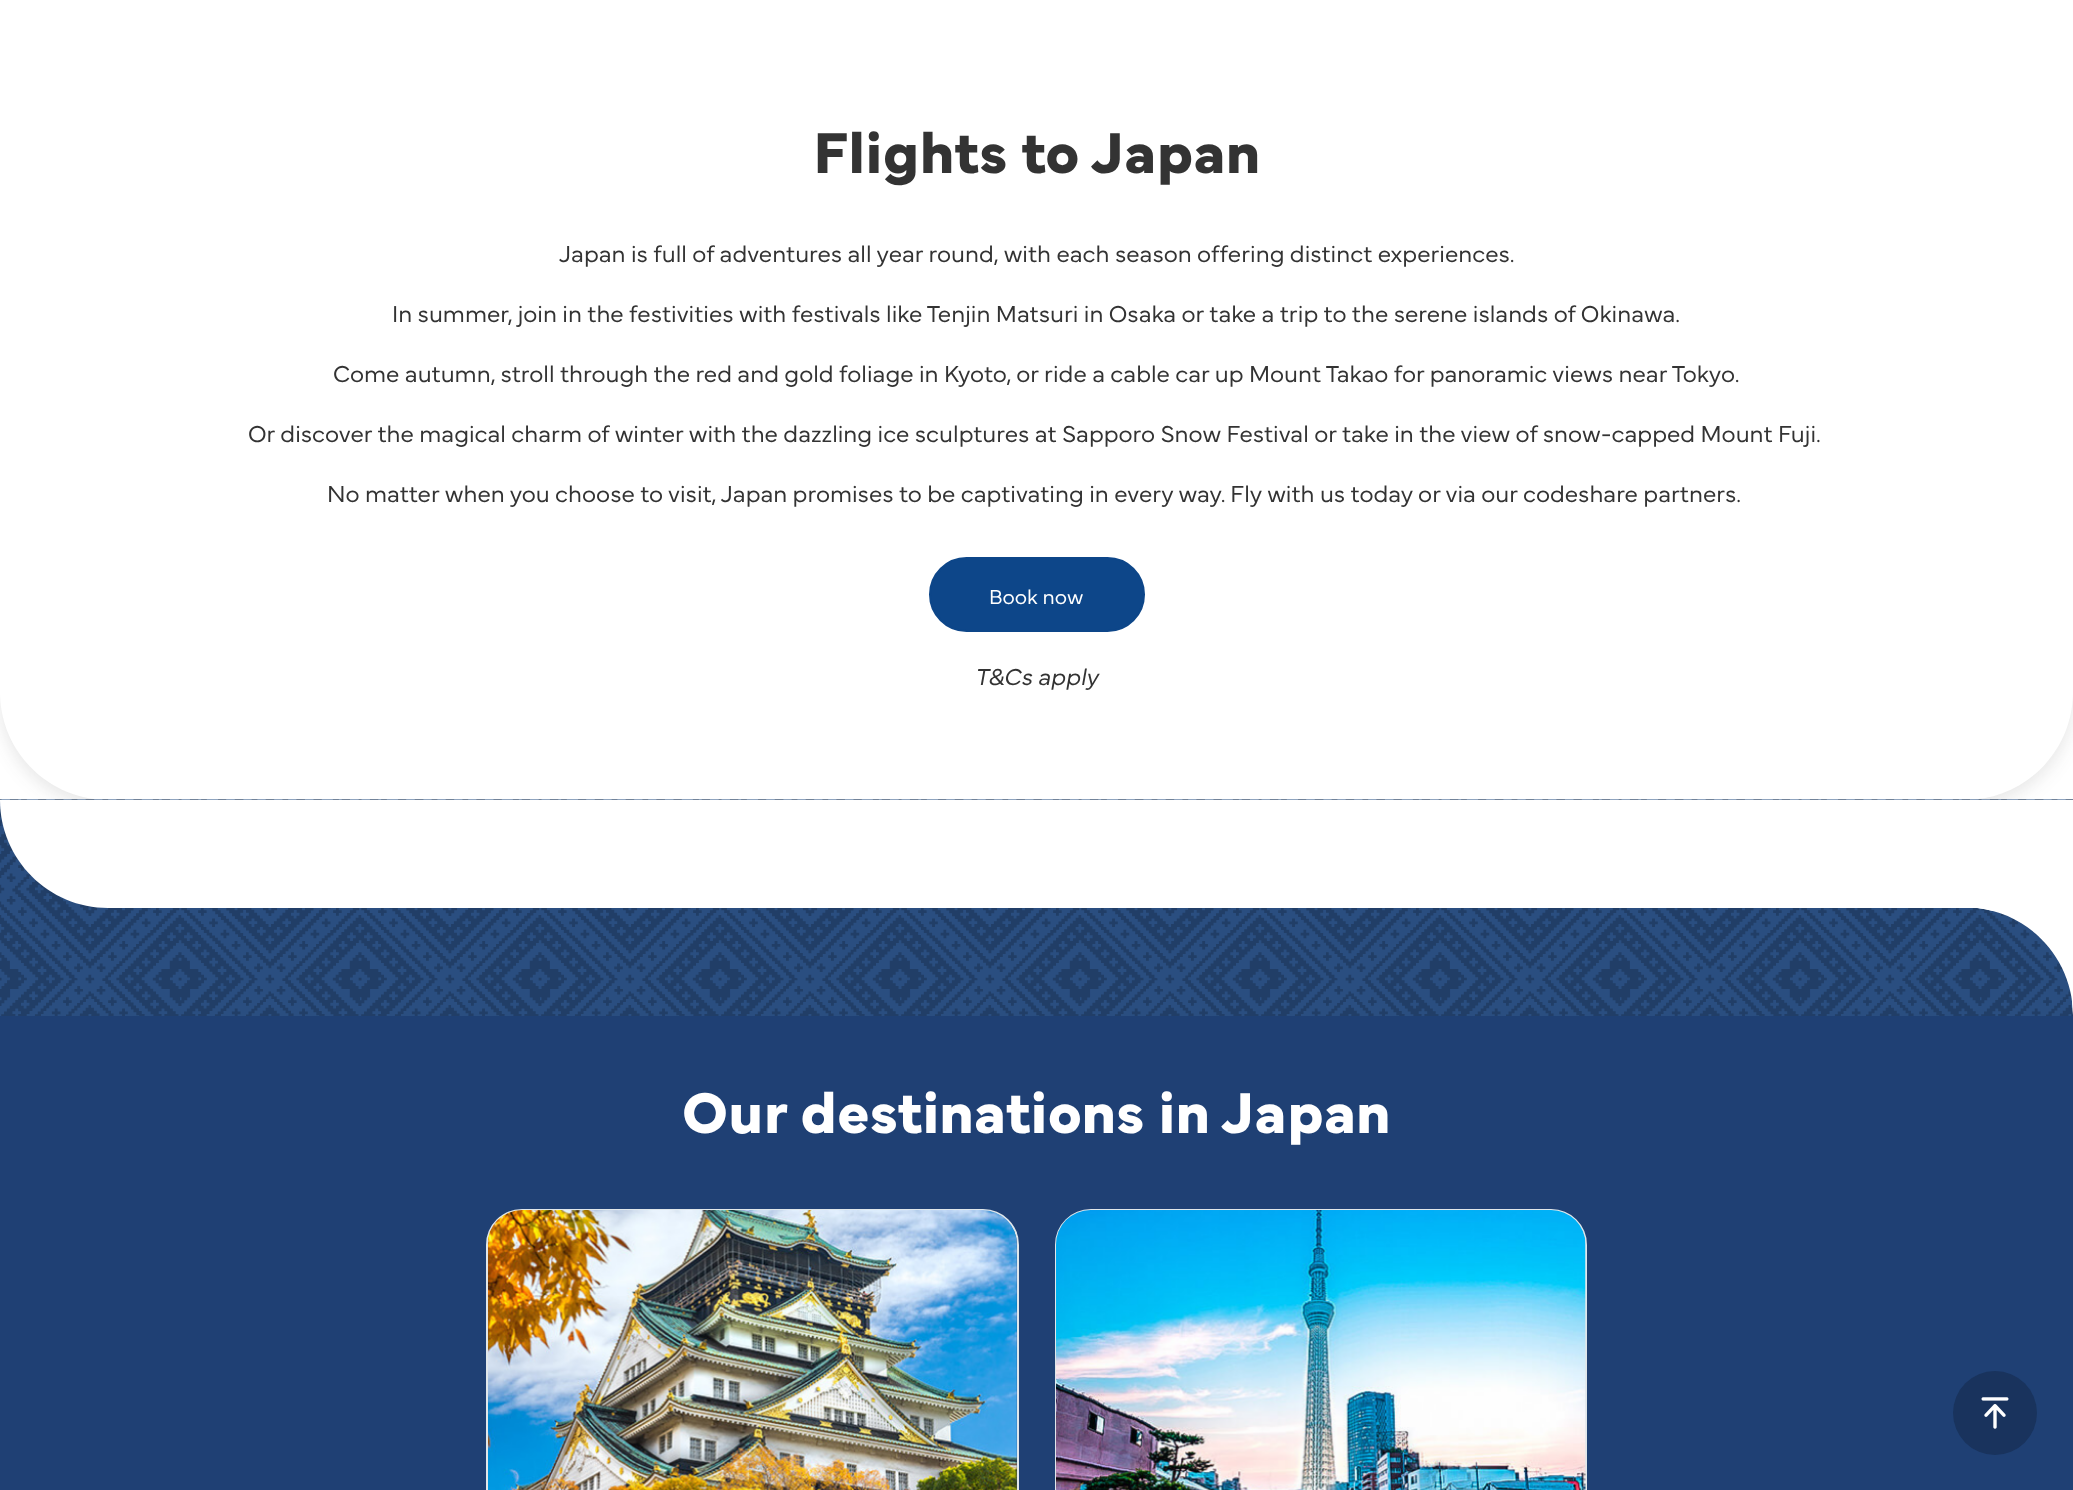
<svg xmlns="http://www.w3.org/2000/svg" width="2073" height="1490">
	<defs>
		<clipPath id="clip1"><path d="M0 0H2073V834H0ZM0-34H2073V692C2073 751.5 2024.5 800 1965 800H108C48.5 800 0 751.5 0 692Z" clip-rule="evenodd" /></clipPath>
		<clipPath id="clip2"><rect x="1857" y="908" width="216" height="216" /></clipPath>
	</defs>
	<rect width="100%" height="100%" fill="#FFFFFF" />
	<g clip-path="url(#clip1)">
		<rect x="0" y="-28" width="2073" height="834" rx="108" fill="#333333" fill-opacity="0.12" filter="blur(9px)" />
	</g>
	<text x="813" y="173" font-family="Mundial" font-size="60" font-weight="700" fill="#333333">Flights to Japan</text>
	<g font-family="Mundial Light" font-size="24" font-weight="300" fill="#333333">
		<text x="559" y="262">Japan is full of adventures all year round, with each season offering distinct experiences.</text>
		<text x="392" y="322">In summer, join in the festivities with festivals like Tenjin Matsuri in Osaka or take a trip to the serene islands of Okinawa.</text>
		<text x="333" y="382">Come autumn, stroll through the red and gold foliage in Kyoto, or ride a cable car up Mount Takao for panoramic views near Tokyo.</text>
		<text x="248" y="442">Or discover the magical charm of winter with the dazzling ice sculptures at Sapporo Snow Festival or take in the view of snow-capped Mount Fuji.</text>
		<text x="327" y="502">No matter when you choose to visit, Japan promises to be captivating in every way. Fly with us today or via our codeshare partners.</text>
	</g>
	<rect x="930" y="558" width="214" height="73" rx="36.5" fill="#0D4689" stroke="#0D4689" stroke-width="2" />
	<text x="989" y="604" font-family="Mundial Light" font-size="21" font-weight="300" fill="#FFFFFF">Book now</text>
	<text x="975" y="685" font-family="Mundial Light" font-size="24" font-weight="300" font-style="italic" fill="#333333">T&amp;Cs apply</text>
	<rect x="0" y="800" width="2073" height="690" fill="#1F4074" />
	<image x="0" y="799" width="2073" height="217" href="assets/img1.png" />
	<path d="M0 800H2073V908H108C48.5 908 0 859.5 0 800Z" fill="#FFFFFF" />
	<path d="M2073 1015V908H1977C2031 914 2073 960 2073 1015Z" fill="#FFFFFF" />
	<g clip-path="url(#clip2)">
		<path d="M1965 907H2073V911H1993C1984 909 1975 907 1965 907Z" fill="#FFFFFF" />
	</g>
	<path d="M2072 908V1001L2073 1015L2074 908Z" fill="#FFFFFF" />
	<text x="682" y="1133" font-family="Mundial" font-size="60" font-weight="700" fill="#FFFFFF">Our destinations in Japan</text>
	<rect x="487" y="1210" width="531" height="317" rx="35" fill="none" stroke="#E1E7EA" stroke-width="2" />
	<image x="488" y="1210" width="529" height="280" href="assets/img2.png" />
	<rect x="1056" y="1210" width="530" height="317" rx="35" fill="none" stroke="#E1E7EA" stroke-width="2" />
	<image x="1056" y="1210" width="530" height="280" href="assets/img3.png" />
	<circle cx="1995" cy="1413" r="42" fill="#19335D" />
	<image x="1981" y="1397" width="28" height="32" href="assets/img4.png" />
</svg>
